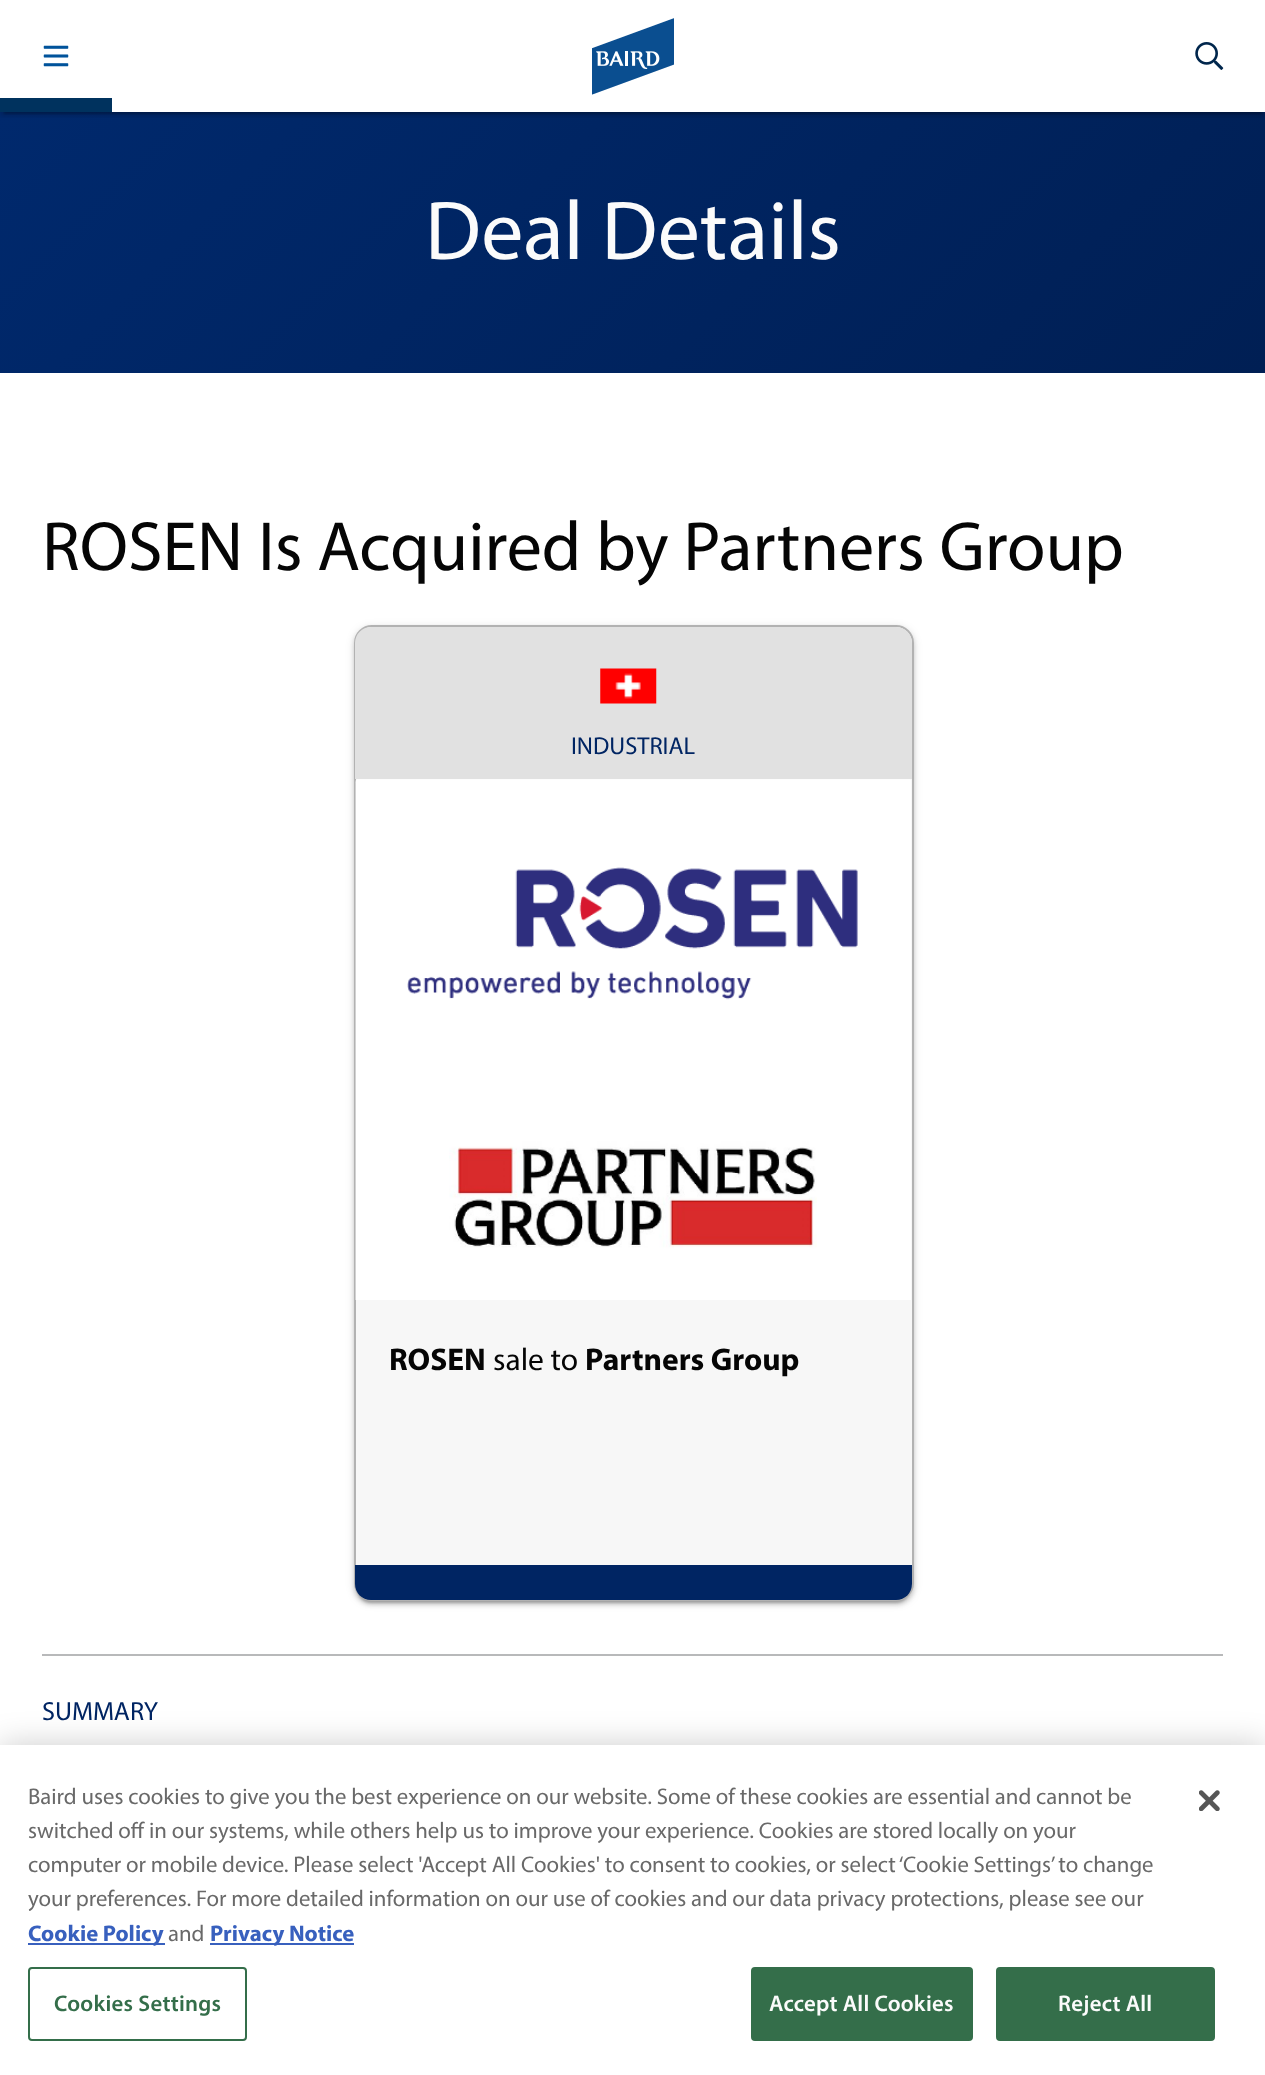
<svg xmlns="http://www.w3.org/2000/svg" width="1265" height="2075">
	<defs>
		<linearGradient id="g1" gradientUnits="userSpaceOnUse" x1="251" y1="-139" x2="1014" y2="624"><stop offset="0" stop-color="#00296D" /><stop offset="1" stop-color="#001F54" /></linearGradient>
		<clipPath id="clip1"><rect x="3" y="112" width="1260" height="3" /></clipPath>
		<clipPath id="clip2"><rect x="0" y="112" width="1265" height="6" /></clipPath>
	</defs>
	<rect width="100%" height="100%" fill="#FFFFFF" />
	<rect x="0" y="112" width="1265" height="261" fill="url(#g1)" />
	<g clip-path="url(#clip1)">
		<rect x="4" y="9" width="1258" height="105" fill="#000000" fill-opacity="0.2" filter="blur(1px)" />
	</g>
	<g clip-path="url(#clip2)">
		<rect x="0" y="4" width="1265" height="112" fill="#000000" fill-opacity="0.14" filter="blur(2px)" />
	</g>
	<image x="592" y="18" width="82" height="77" href="assets/img1.png" />
	<image x="1195" y="42" width="29" height="28" href="assets/img2.png" />
	<image x="43" y="45" width="26" height="22" href="assets/img3.png" />
	<rect x="0" y="98" width="112" height="14" fill="#00325E" />
	<text x="425" y="259" font-family="Myriad" font-size="84" fill="#FBFBFB">Deal Details</text>
	<text x="42" y="570" font-family="Myriad" font-size="70" fill="#050505">ROSEN Is Acquired by Partners Group</text>
	<rect x="357" y="634" width="553" height="969" rx="14" fill="#000000" fill-opacity="0.2" filter="blur(1px)" />
	<rect x="354" y="627" width="560" height="976" rx="18" fill="#000000" fill-opacity="0.12" filter="blur(4.5px)" />
	<rect x="354" y="628" width="560" height="977" rx="18" fill="#000000" fill-opacity="0.14" filter="blur(2px)" />
	<rect x="355" y="626" width="558" height="974" rx="17" fill="#F7F7F7" stroke="#B2B2B2" stroke-width="2" />
	<path d="M371 627H896C905 627 912 634 912 643V779H355V643C355 634 362 627 371 627Z" fill="#E1E1E1" />
	<image x="600" y="668" width="57" height="36" href="assets/img4.png" />
	<text x="571" y="754" font-family="Myriad" font-size="24.5" fill="#002563">INDUSTRIAL</text>
	<image x="355" y="779" width="556" height="521" href="assets/img5.png" />
	<text x="389" y="1370" font-family="Myriad" font-size="31.5" font-weight="700" fill="#050505">ROSEN</text>
	<text x="493" y="1370" font-family="Myriad" font-size="31.5" fill="#050505">sale to</text>
	<text x="585" y="1370" font-family="Myriad" font-size="31.5" font-weight="700" fill="#050505">Partners Group</text>
	<path d="M355 1565H912V1584C912 1593 905 1600 896 1600H371C362 1600 355 1593 355 1584Z" fill="#002563" />
	<rect x="42" y="1654" width="1181" height="2" fill="#B8B9BA" />
	<text x="42" y="1720" font-family="Myriad" font-size="26.25" fill="#002563">SUMMARY</text>
	<rect x="0" y="1745" width="1265" height="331" fill="#000000" fill-opacity="0.2" filter="blur(16px)" />
	<rect x="0" y="1745" width="1265" height="330" fill="#FFFFFF" />
	<g font-family="Myriad" font-size="22.75" fill="#696969">
		<text x="28" y="1804">Baird uses cookies to give you the best experience on our website. Some of these cookies are essential and cannot be</text>
		<text x="28" y="1838">switched off in our systems, while others help us to improve your experience. Cookies are stored locally on your</text>
		<text x="28" y="1872">computer or mobile device. Please select 'Accept All Cookies' to consent to cookies, or select ‘Cookie Settings’ to change</text>
		<text x="28" y="1906">your preferences. For more detailed information on our use of cookies and our data privacy protections, please see our</text>
	</g>
	<rect x="28" y="1943" width="137" height="2" fill="#3860BE" />
	<text x="28" y="1941" font-family="Myriad" font-size="22.75" font-weight="700" fill="#3860BE">Cookie Policy</text>
	<text x="168" y="1941" font-family="Myriad" font-size="22.75" fill="#696969">and</text>
	<rect x="210" y="1943" width="144" height="2" fill="#3860BE" />
	<text x="210" y="1941" font-family="Myriad" font-size="22.75" font-weight="700" fill="#3860BE">Privacy Notice</text>
	<rect x="29" y="1968" width="217" height="72" rx="3" fill="none" stroke="#346E4A" stroke-width="2" />
	<text x="54" y="2011" font-family="Myriad" font-size="22.75" font-weight="600" letter-spacing="0.25" fill="#346E4A">Cookies Settings</text>
	<rect x="752" y="1968" width="220" height="72" rx="3" fill="#346E4A" stroke="#346E4A" stroke-width="2" />
	<text x="769" y="2011" font-family="Myriad" font-size="22.75" font-weight="600" letter-spacing="0.25" fill="#FBFBFB">Accept All Cookies</text>
	<rect x="997" y="1968" width="217" height="72" rx="3" fill="#346E4A" stroke="#346E4A" stroke-width="2" />
	<text x="1058" y="2011" font-family="Myriad" font-size="22.75" font-weight="600" letter-spacing="0.25" fill="#FBFBFB">Reject All</text>
	<image x="1199" y="1790" width="21" height="21" href="assets/img6.png" />
</svg>
